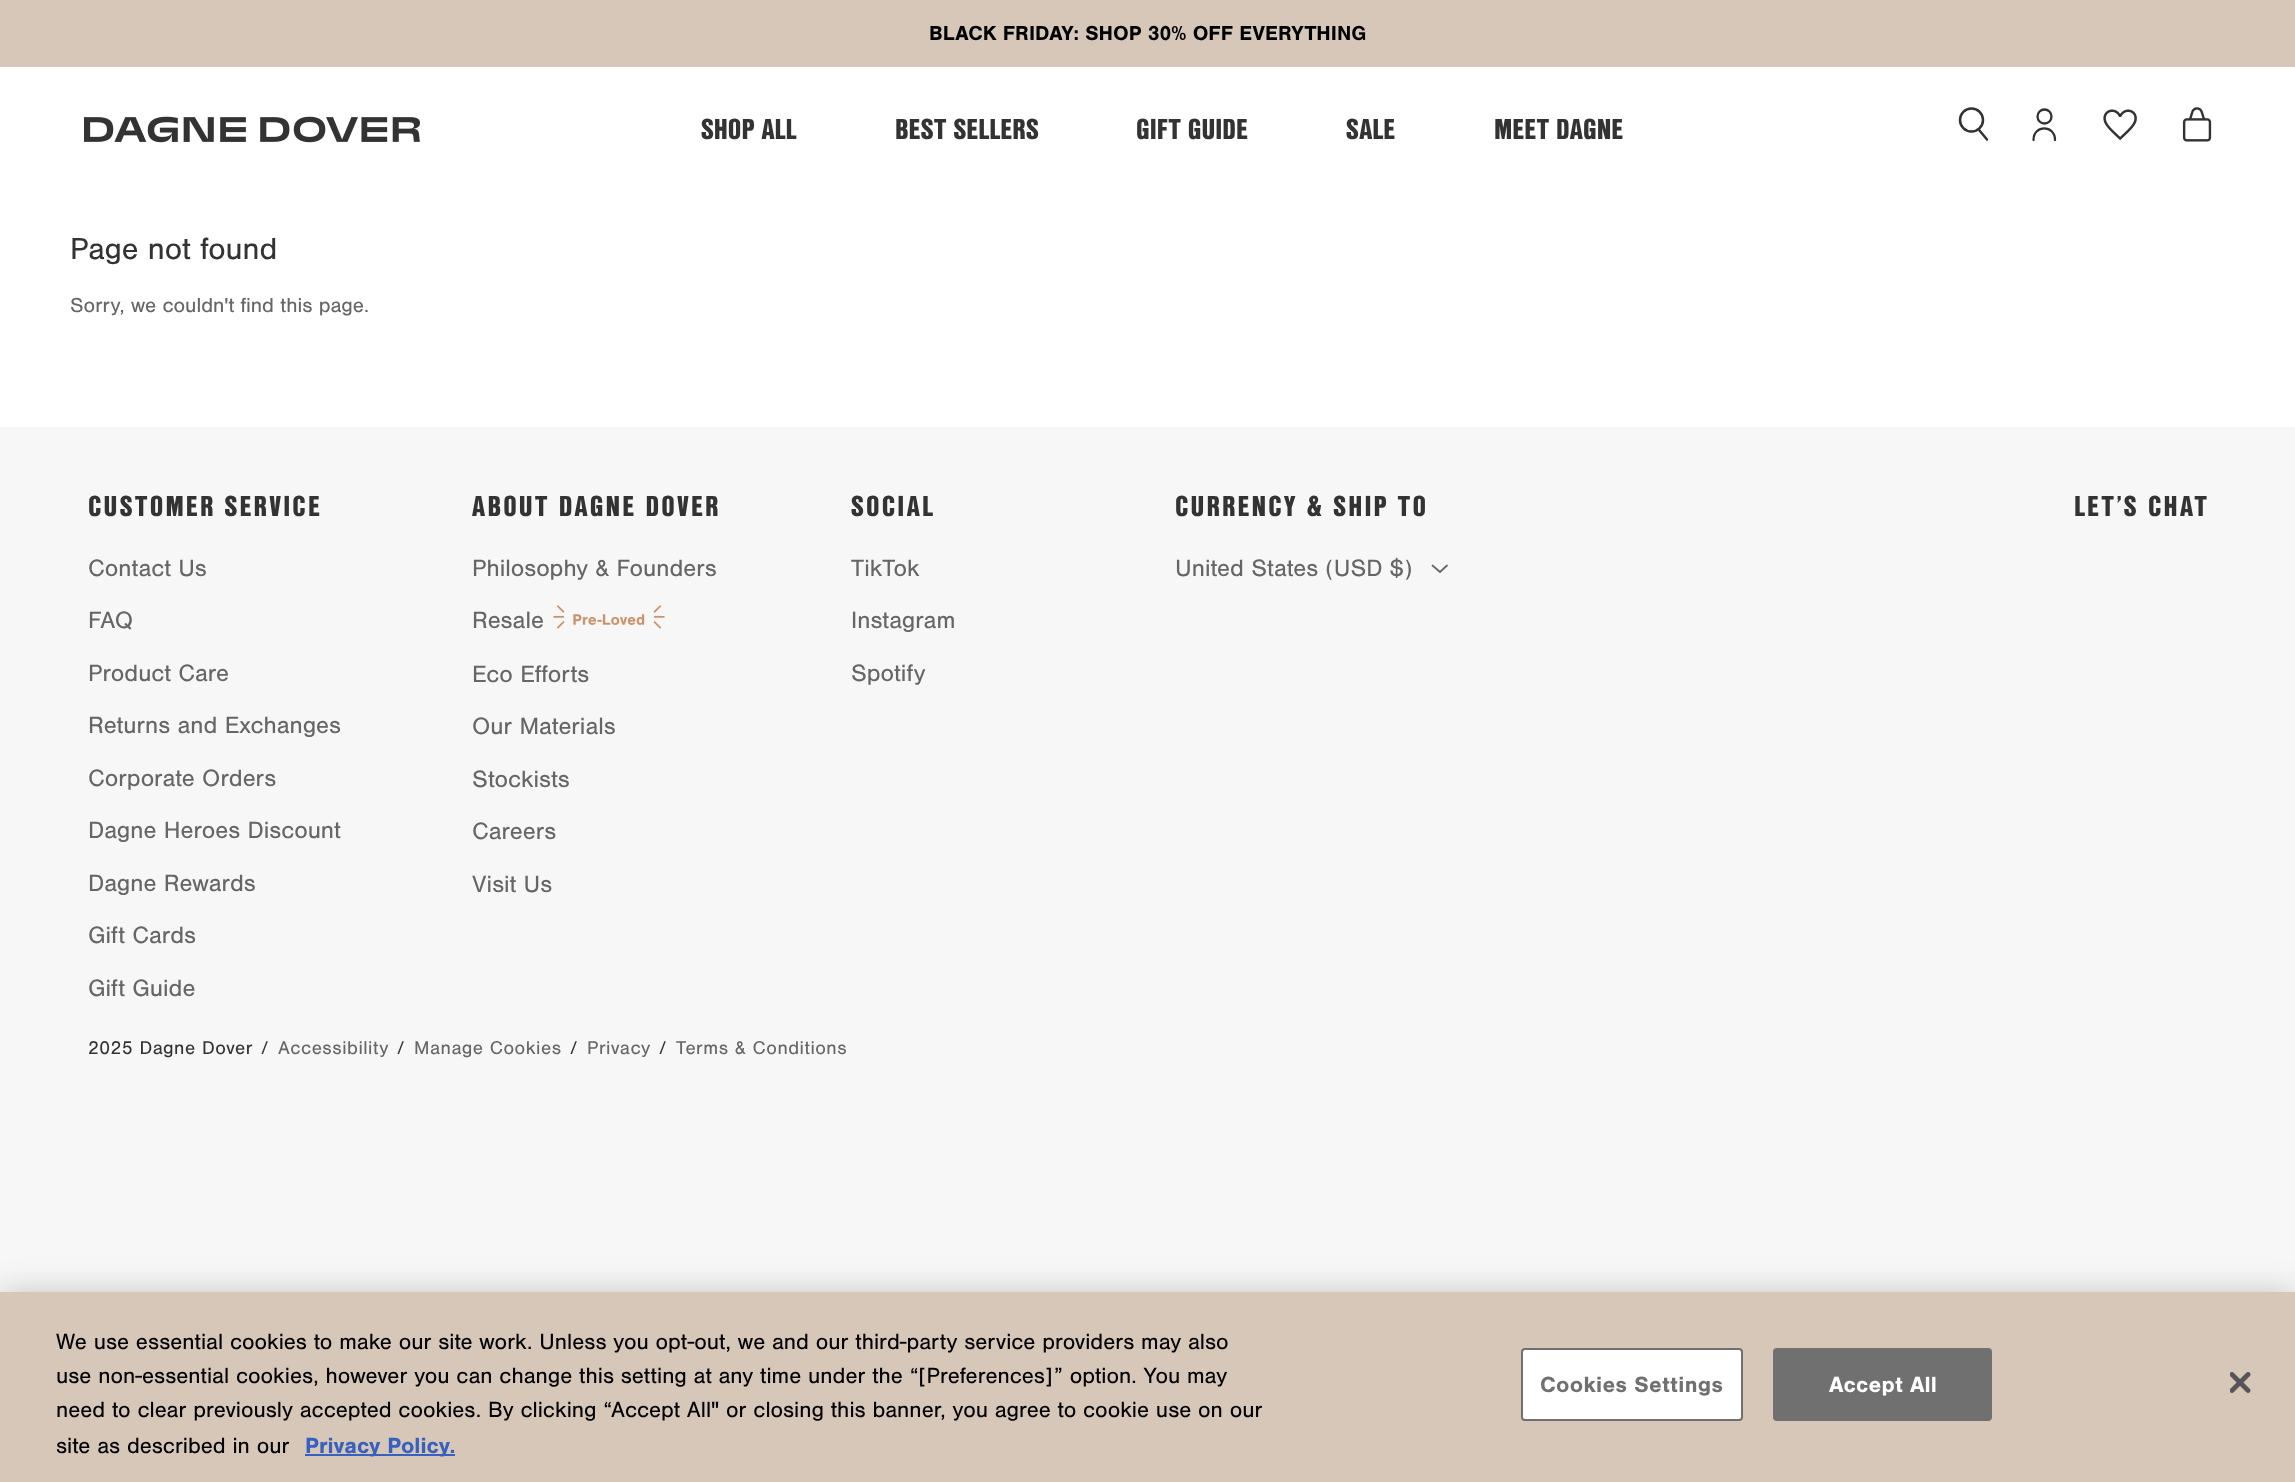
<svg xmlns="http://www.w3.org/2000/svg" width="2295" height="1482">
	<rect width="100%" height="100%" fill="#F7F7F7" />
	<rect x="0" y="67" width="2295" height="360" fill="#FFFFFF" />
	<rect x="0" y="0" width="2295" height="67" fill="#D6C7B8" />
	<text x="929" y="40" font-family="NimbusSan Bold" font-size="21" font-weight="700" fill="#000000">BLACK FRIDAY: SHOP 30% OFF EVERYTHING</text>
	<image x="84" y="116" width="336" height="27" href="assets/img1.png" />
	<g font-family="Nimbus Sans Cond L" font-size="28" font-weight="900" fill="#333333">
		<text x="701" y="139">SHOP ALL</text>
		<text x="895" y="139">BEST SELLERS</text>
		<text x="1136" y="139">GIFT GUIDE</text>
		<text x="1346" y="139">SALE</text>
		<text x="1494" y="139">MEET DAGNE</text>
	</g>
	<path d="M1979.5 130.5L1987 139.5" fill="none" stroke="#323232" stroke-width="2.5" stroke-linecap="round" />
	<circle cx="1971.5" cy="120" r="11.5" fill="none" stroke="#323232" stroke-width="2.5" />
	<circle cx="2044.5" cy="116.5" r="7" fill="none" stroke="#323232" stroke-width="2.3" />
	<path d="M2033.5 140C2033.5 124.5 2055 124.5 2055 140" fill="none" stroke="#323232" stroke-width="2.3" stroke-linecap="round" />
	<image x="2103" y="109" width="34" height="32" href="assets/img2.png" />
	<image x="2182" y="107" width="30" height="35" href="assets/img3.png" />
	<text x="70" y="259" font-family="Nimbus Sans" font-size="31.5" fill="#333333">Page not found</text>
	<text x="70" y="312" font-family="Nimbus Sans" font-size="21" fill="#666666">Sorry, we couldn't find this page.</text>
	<text x="88" y="516" font-family="Nimbus Sans Cond L" font-size="28" font-weight="900" letter-spacing="2.1" fill="#333333">CUSTOMER SERVICE</text>
	<g font-family="Nimbus Sans" font-size="24.5" fill="#666666">
		<text x="88" y="576">Contact Us</text>
		<text x="88" y="628">FAQ</text>
		<text x="88" y="681">Product Care</text>
		<text x="88" y="733">Returns and Exchanges</text>
		<text x="88" y="786">Corporate Orders</text>
		<text x="88" y="838">Dagne Heroes Discount</text>
		<text x="88" y="891">Dagne Rewards</text>
		<text x="88" y="943">Gift Cards</text>
		<text x="88" y="996">Gift Guide</text>
	</g>
	<text x="472" y="516" font-family="Nimbus Sans Cond L" font-size="28" font-weight="900" letter-spacing="2.1" fill="#333333">ABOUT DAGNE DOVER</text>
	<g font-family="Nimbus Sans" font-size="24.5" fill="#666666">
		<text x="472" y="576">Philosophy &amp; Founders</text>
		<text x="472" y="628">Resale</text>
	</g>
	<image x="553" y="605" width="112" height="24" href="assets/img4.png" />
	<g font-family="Nimbus Sans" font-size="24.5" fill="#666666">
		<text x="472" y="682">Eco Efforts</text>
		<text x="472" y="734">Our Materials</text>
		<text x="472" y="787">Stockists</text>
		<text x="472" y="839">Careers</text>
		<text x="472" y="892">Visit Us</text>
	</g>
	<text x="851" y="516" font-family="Nimbus Sans Cond L" font-size="28" font-weight="900" letter-spacing="2.1" fill="#333333">SOCIAL</text>
	<g font-family="Nimbus Sans" font-size="24.5" fill="#666666">
		<text x="851" y="576">TikTok</text>
		<text x="851" y="628">Instagram</text>
		<text x="851" y="681">Spotify</text>
	</g>
	<text x="1175" y="516" font-family="Nimbus Sans Cond L" font-size="28" font-weight="900" letter-spacing="2.1" fill="#333333">CURRENCY &amp; SHIP TO</text>
	<text x="1175" y="576" font-family="Nimbus Sans" font-size="24.5" fill="#666666">United States (USD $)</text>
	<path d="M1432.5 565.5L1440 572L1447 565.5" fill="none" stroke="#666666" stroke-width="1.8" stroke-linecap="round" />
	<text x="2074" y="516" font-family="Nimbus Sans Cond L" font-size="28" font-weight="900" letter-spacing="2.1" fill="#333333">LET’S CHAT</text>
	<g font-family="Nimbus Sans" font-size="19.25" letter-spacing="0.5" fill="#333333">
		<text x="88" y="1054">2025 Dagne Dover</text>
		<text x="261" y="1054">/</text>
	</g>
	<text x="278" y="1054" font-family="Nimbus Sans" font-size="19.25" letter-spacing="0.5" fill="#666666">Accessibility</text>
	<text x="397" y="1054" font-family="Nimbus Sans" font-size="19.25" letter-spacing="0.5" fill="#333333">/</text>
	<text x="414" y="1054" font-family="Nimbus Sans" font-size="19.25" letter-spacing="0.5" fill="#666666">Manage Cookies</text>
	<text x="570" y="1054" font-family="Nimbus Sans" font-size="19.25" letter-spacing="0.5" fill="#333333">/</text>
	<text x="587" y="1054" font-family="Nimbus Sans" font-size="19.25" letter-spacing="0.5" fill="#666666">Privacy</text>
	<text x="659" y="1054" font-family="Nimbus Sans" font-size="19.25" letter-spacing="0.5" fill="#333333">/</text>
	<text x="676" y="1054" font-family="Nimbus Sans" font-size="19.25" letter-spacing="0.5" fill="#666666">Terms &amp; Conditions</text>
	<rect x="0" y="1292" width="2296" height="190" fill="#000000" fill-opacity="0.2" filter="blur(16px)" />
	<rect x="0" y="1292" width="2295" height="190" fill="#D6C7B8" />
	<g font-family="Nimbus Sans" font-size="22.75" fill="#000000">
		<text x="56" y="1349">We use essential cookies to make our site work. Unless you opt-out, we and our third-party service providers may also</text>
		<text x="56" y="1383">use non-essential cookies, however you can change this setting at any time under the “[Preferences]” option. You may</text>
		<text x="56" y="1417">need to clear previously accepted cookies. By clicking “Accept All" or closing this banner, you agree to cookie use on our</text>
		<text x="56" y="1453">site as described in our</text>
	</g>
	<rect x="305" y="1454" width="150" height="2" fill="#3860BE" />
	<text x="305" y="1453" font-family="NimbusSan Bold" font-size="22.75" font-weight="700" fill="#3860BE">Privacy Policy.</text>
	<rect x="1522" y="1349" width="220" height="71" rx="3" fill="#FFFFFF" stroke="#717070" stroke-width="2" />
	<text x="1540" y="1392" font-family="NimbusSan Bold" font-size="22.75" font-weight="700" letter-spacing="0.25" fill="#717070">Cookies Settings</text>
	<rect x="1774" y="1349" width="217" height="71" rx="3" fill="#717070" stroke="#717070" stroke-width="2" />
	<text x="1829" y="1392" font-family="NimbusSan Bold" font-size="22.75" font-weight="700" letter-spacing="0.25" fill="#FFFFFF">Accept All</text>
	<image x="2230" y="1372" width="21" height="21" href="assets/img5.png" />
</svg>
